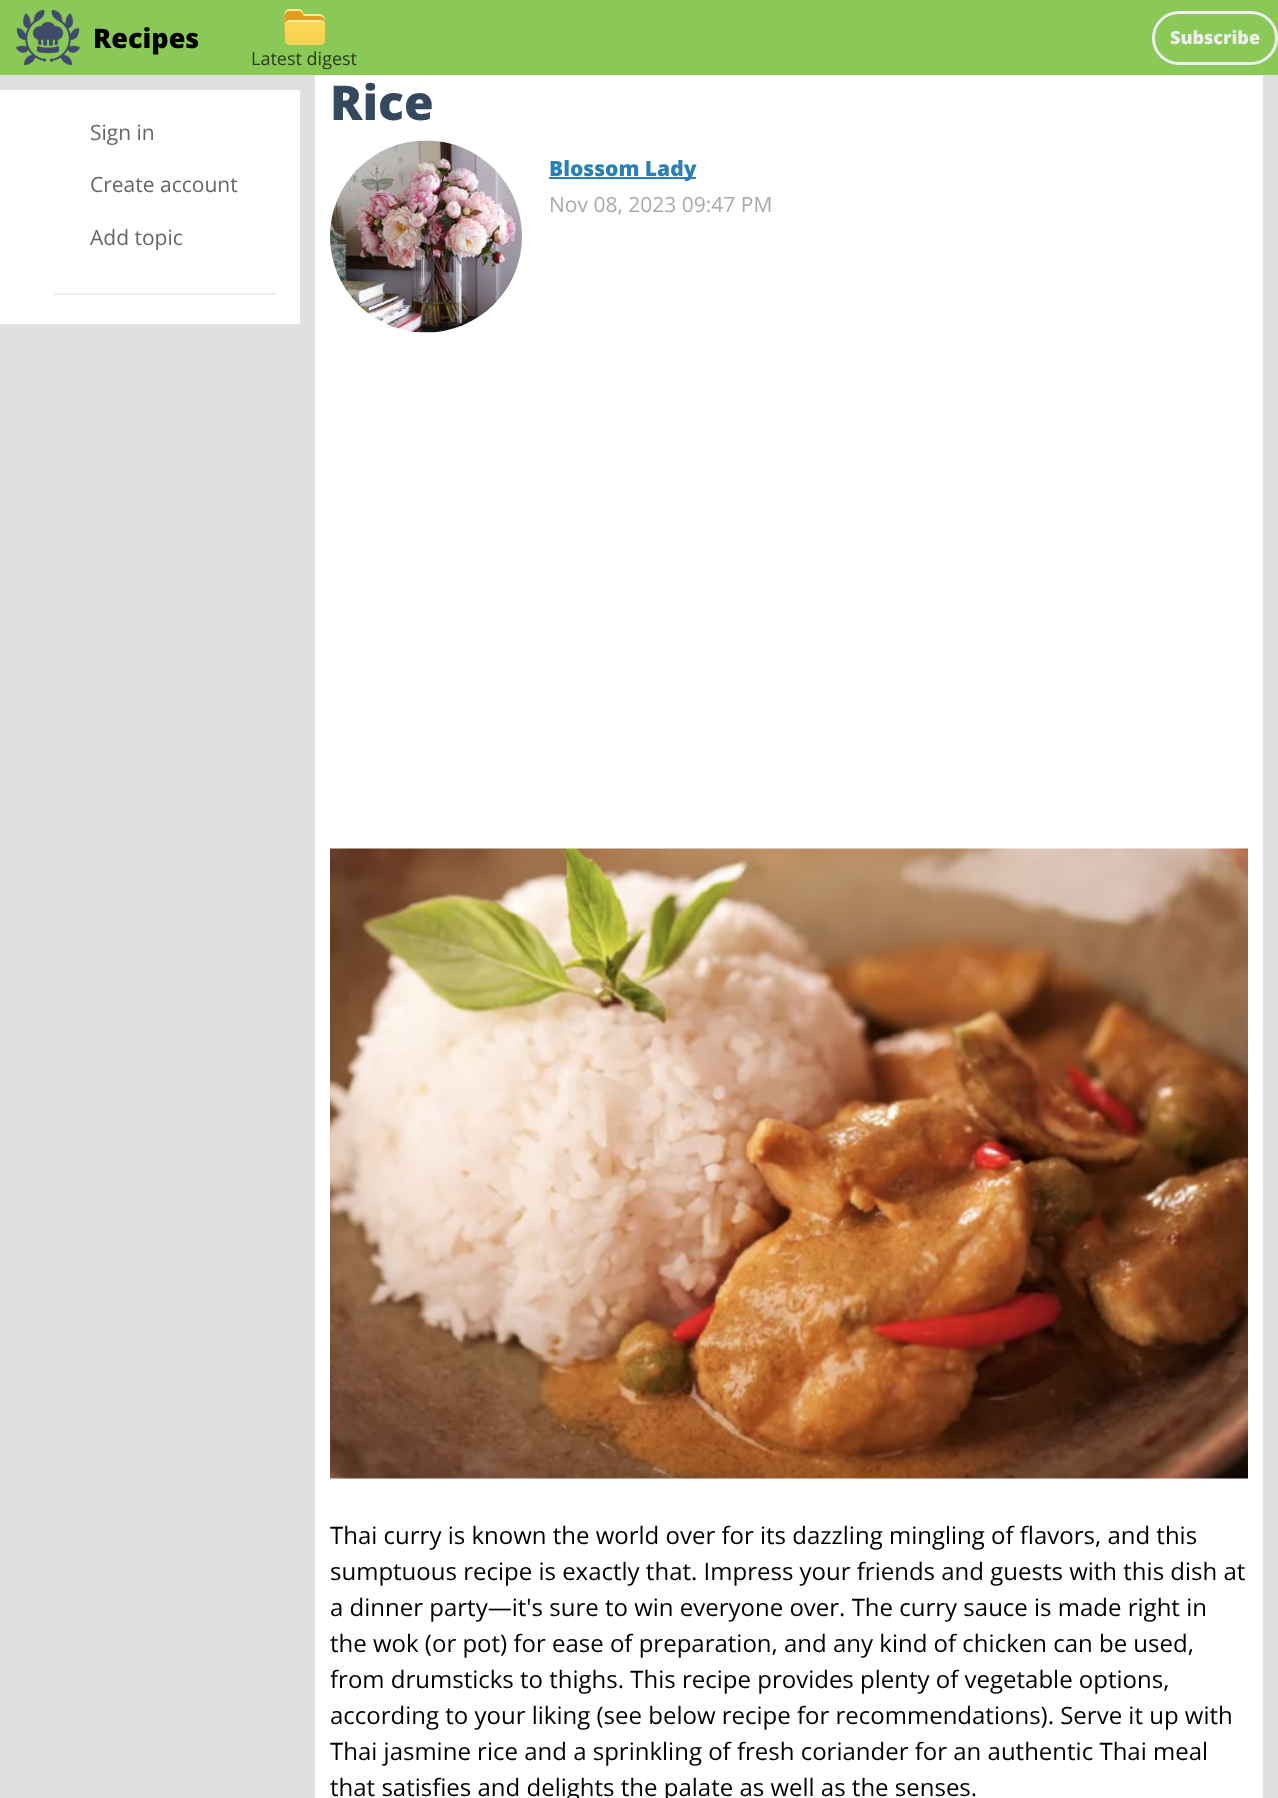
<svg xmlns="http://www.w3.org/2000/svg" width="1278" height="1798">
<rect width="100%" height="100%" fill="#e0e0e0"/>
<rect width="1278" height="75" fill="#8ac858"/>
<image x="16" y="9" width="64" height="57" href="media/1.png"/>
<text x="93" y="48" style="font-family:Open Sans;font-size:27px;font-weight:800;fill:#000">Recipes</text>
<rect x="1153.5" y="12.5" width="123" height="51" rx="25.5" fill="none" stroke="#eee" stroke-width="3"/>
<text x="1170" y="44" style="font-family:Open Sans;font-size:18px;font-weight:800;fill:#eee">Subscribe</text>
<image x="284" y="9" width="41" height="36" href="media/2.png"/>
<text x="251" y="65" style="font-family:Open Sans;font-size:18px;fill:#293c1a">Latest digest</text>
<rect y="90" width="300" height="234" fill="#fff"/>
<text x="90" y="140" style="font-family:Open Sans;font-size:21px;fill:#666">Sign in</text>
<text x="90" y="192" style="font-family:Open Sans;font-size:21px;fill:#666">Create account</text>
<text x="90" y="245" style="font-family:Open Sans;font-size:21px;fill:#666">Add topic</text>
<rect x="54" y="293" width="222" height="2" fill="#eee"/>
<rect x="315" y="75" width="948" height="1723" fill="#fff"/>
<text x="330" y="120" style="font-family:Open Sans;font-size:48px;font-weight:800;fill:#34495e">Rice</text>
<image x="330" y="140" width="192" height="193" href="media/3.png"/>
<rect x="549" y="177" width="147" height="2" fill="#2980b9"/>
<text x="549" y="176" style="font-family:Open Sans;font-size:21px;font-weight:800;fill:#2980b9">Blossom Lady</text>
<text x="549" y="212" style="font-family:Open Sans;font-size:21px;fill:#aaa">Nov 08, 2023 09:47 PM</text>
<image x="330" y="848" width="918" height="631" href="media/4.png"/>
<text x="330" y="1544" style="font-family:Open Sans;font-size:24px;fill:#000">Thai curry is known the world over for its dazzling mingling of flavors, and this</text>
<text x="330" y="1580" style="font-family:Open Sans;font-size:24px;fill:#000">sumptuous recipe is exactly that. Impress your friends and guests with this dish at</text>
<text x="330" y="1616" style="font-family:Open Sans;font-size:24px;fill:#000">a dinner party—it's sure to win everyone over. The curry sauce is made right in</text>
<text x="330" y="1652" style="font-family:Open Sans;font-size:24px;fill:#000">the wok (or pot) for ease of preparation, and any kind of chicken can be used,</text>
<text x="330" y="1688" style="font-family:Open Sans;font-size:24px;fill:#000">from drumsticks to thighs. This recipe provides plenty of vegetable options,</text>
<text x="330" y="1724" style="font-family:Open Sans;font-size:24px;fill:#000">according to your liking (see below recipe for recommendations). Serve it up with</text>
<text x="330" y="1760" style="font-family:Open Sans;font-size:24px;fill:#000">Thai jasmine rice and a sprinkling of fresh coriander for an authentic Thai meal</text>
<text x="330" y="1796" style="font-family:Open Sans;font-size:24px;fill:#000">that satisfies and delights the palate as well as the senses.</text>
</svg>
